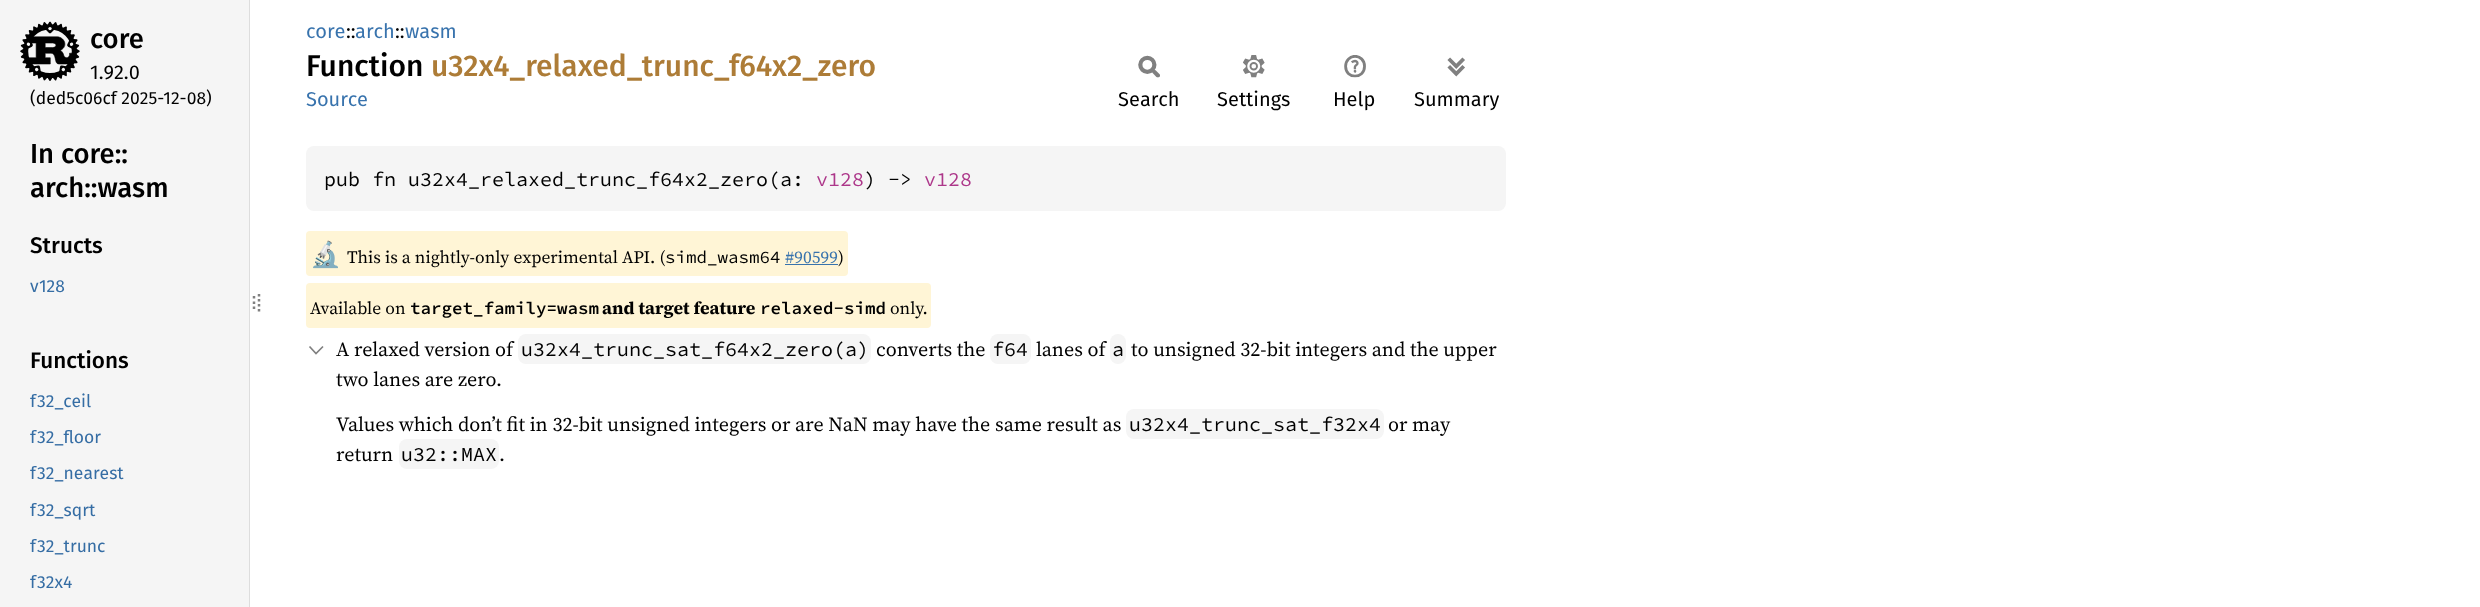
<svg xmlns="http://www.w3.org/2000/svg" width="2480" height="607">
<rect width="100%" height="100%" fill="#fff"/>
<rect width="249" height="607" fill="#f5f5f5"/>
<rect x="249" width="1" height="607" fill="#ddd"/>
<image x="20" y="21" width="60" height="60" href="media/1.png"/>
<text x="90" y="48" style="font-family:Fira Sans;font-size:27.5px;font-weight:500;fill:#000">core</text>
<text x="90" y="79" style="font-family:Fira Sans;font-size:20px;fill:#000">1.92.0</text>
<text x="30" y="104" style="font-family:Fira Sans;font-size:17.5px;fill:#000">(ded5c06cf 2025-12-08)</text>
<text x="30" y="163" style="font-family:Fira Sans;font-size:27.5px;font-weight:500;fill:#000">In core::</text>
<text x="30" y="197" style="font-family:Fira Sans;font-size:27.5px;font-weight:500;fill:#000">arch::wasm</text>
<text x="30" y="253" style="font-family:Fira Sans;font-size:22.5px;font-weight:500;fill:#000">Structs</text>
<text x="30" y="292" style="font-family:Fira Sans;font-size:17.5px;fill:#356da4">v128</text>
<text x="30" y="368" style="font-family:Fira Sans;font-size:22.5px;font-weight:500;fill:#000">Functions</text>
<text x="30" y="407" style="font-family:Fira Sans;font-size:17.5px;fill:#356da4">f32_ceil</text>
<text x="30" y="443" style="font-family:Fira Sans;font-size:17.5px;fill:#356da4">f32_floor</text>
<text x="30" y="479" style="font-family:Fira Sans;font-size:17.5px;fill:#356da4">f32_nearest</text>
<text x="30" y="516" style="font-family:Fira Sans;font-size:17.5px;fill:#356da4">f32_sqrt</text>
<text x="30" y="552" style="font-family:Fira Sans;font-size:17.5px;fill:#356da4">f32_trunc</text>
<text x="30" y="588" style="font-family:Fira Sans;font-size:17.5px;fill:#356da4">f32x4</text>
<path d="M254 296v2.5m0 3v2.5m0 2.5v2.5" fill="none" stroke="#808080" stroke-width="2.5"/>
<path d="M259 294v20" fill="none" stroke="#808080" stroke-width="2.5" stroke-dasharray="2.5 2.5"/>
<text x="306" y="38" style="font-family:Fira Sans;font-size:20px;fill:#3873ad">core</text>
<text x="346" y="38" style="font-family:Fira Sans;font-size:20px;fill:#000">::</text>
<text x="355" y="38" style="font-family:Fira Sans;font-size:20px;fill:#3873ad">arch</text>
<text x="395" y="38" style="font-family:Fira Sans;font-size:20px;fill:#000">::</text>
<text x="405" y="38" style="font-family:Fira Sans;font-size:20px;fill:#3873ad">wasm</text>
<text x="306" y="76" style="font-family:Fira Sans;font-size:30px;font-weight:500;fill:#000">Function</text>
<text x="431" y="76" style="font-family:Fira Sans;font-size:30px;font-weight:500;fill:#ad7c37">u32x4_relaxed_trunc_f64x2_zero</text>
<text x="306" y="106" style="font-family:Fira Sans;font-size:20px;fill:#3873ad">Source</text>
<image x="1138" y="55" width="22" height="23" href="media/2.png"/>
<text x="1118" y="106" style="font-family:Fira Sans;font-size:20px;fill:#000">Search</text>
<image x="1243" y="55" width="22" height="23" href="media/3.png"/>
<text x="1217" y="106" style="font-family:Fira Sans;font-size:20px;fill:#000">Settings</text>
<image x="1344" y="55" width="22" height="23" href="media/4.png"/>
<text x="1333" y="106" style="font-family:Fira Sans;font-size:20px;fill:#000">Help</text>
<image x="1447" y="57" width="18" height="20" href="media/5.png"/>
<text x="1414" y="106" style="font-family:Fira Sans;font-size:20px;fill:#000">Summary</text>
<rect x="306" y="146" width="1200" height="65" rx="8" fill="#f5f5f5"/>
<text x="324" y="186" style="font-family:Source Code Pro;font-size:20px;fill:#000">pub fn u32x4_relaxed_trunc_f64x2_zero(a:</text>
<text x="816" y="186" style="font-family:Source Code Pro;font-size:20px;fill:#ad378a">v128</text>
<text x="864" y="186" style="font-family:Source Code Pro;font-size:20px;fill:#000">) -&gt;</text>
<text x="924" y="186" style="font-family:Source Code Pro;font-size:20px;fill:#ad378a">v128</text>
<rect x="306" y="231" width="542" height="45" rx="4" fill="#fff5d6"/>
<text x="310" y="263" style="font-family:Noto Color Emoji;font-size:25px;fill:#000">🔬</text>
<text x="347" y="263" style="font-family:'Source Serif 4';font-size:17.5px;fill:#000">This is a nightly-only experimental API. (</text>
<text x="665" y="263" style="font-family:Source Code Pro;font-size:17.5px;fill:#000">simd_wasm64</text>
<text x="785" y="263" style="font-family:'Source Serif 4';font-size:17.5px;fill:#3873ad">#90599</text>
<text x="838" y="263" style="font-family:'Source Serif 4';font-size:17.5px;fill:#000">)</text>
<rect x="785" y="264" width="53" height="1" fill="#3873ad"/>
<rect x="306" y="283" width="625" height="45" rx="4" fill="#fff5d6"/>
<text x="310" y="314" style="font-family:'Source Serif 4';font-size:17.5px;fill:#000">Available on</text>
<text x="410" y="314" style="font-family:Source Code Pro;font-size:17.5px;font-weight:600;fill:#000">target_family=wasm</text>
<text x="602" y="314" style="font-family:'Source Serif 4';font-size:17.5px;font-weight:bold;fill:#000">and target feature</text>
<text x="760" y="314" style="font-family:Source Code Pro;font-size:17.5px;font-weight:600;fill:#000">relaxed-simd</text>
<text x="890" y="314" style="font-family:'Source Serif 4';font-size:17.5px;fill:#000">only.</text>
<path d="M309.5 346.5l6.5 7l7-7" fill="none" stroke="#808080" stroke-width="1.7"/>
<text x="336" y="356" style="font-family:'Source Serif 4';font-size:20px;fill:#000">A relaxed version of</text>
<rect x="518" y="334" width="353" height="30" rx="8" fill="#f5f5f5"/>
<text x="521" y="356" style="font-family:Source Code Pro;font-size:20px;fill:#000">u32x4_trunc_sat_f64x2_zero(a)</text>
<text x="876" y="356" style="font-family:'Source Serif 4';font-size:20px;fill:#000">converts the</text>
<rect x="990" y="334" width="41" height="30" rx="8" fill="#f5f5f5"/>
<text x="992" y="356" style="font-family:Source Code Pro;font-size:20px;fill:#000">f64</text>
<text x="1036" y="356" style="font-family:'Source Serif 4';font-size:20px;fill:#000">lanes of</text>
<rect x="1110" y="334" width="16" height="30" rx="8" fill="#f5f5f5"/>
<text x="1112" y="356" style="font-family:Source Code Pro;font-size:20px;fill:#000">a</text>
<text x="1131" y="356" style="font-family:'Source Serif 4';font-size:20px;fill:#000">to unsigned 32-bit integers and the upper</text>
<text x="336" y="386" style="font-family:'Source Serif 4';font-size:20px;fill:#000">two lanes are zero.</text>
<text x="336" y="431" style="font-family:'Source Serif 4';font-size:20px;fill:#000">Values which don’t fit in 32-bit unsigned integers or are NaN may have the same result as</text>
<rect x="1126" y="409" width="258" height="30" rx="8" fill="#f5f5f5"/>
<text x="1129" y="431" style="font-family:Source Code Pro;font-size:20px;fill:#000">u32x4_trunc_sat_f32x4</text>
<text x="1388" y="431" style="font-family:'Source Serif 4';font-size:20px;fill:#000">or may</text>
<text x="336" y="461" style="font-family:'Source Serif 4';font-size:20px;fill:#000">return</text>
<rect x="399" y="439" width="100" height="30" rx="8" fill="#f5f5f5"/>
<text x="401" y="461" style="font-family:Source Code Pro;font-size:20px;fill:#000">u32::MAX</text>
<text x="499" y="461" style="font-family:'Source Serif 4';font-size:20px;fill:#000">.</text>
</svg>
